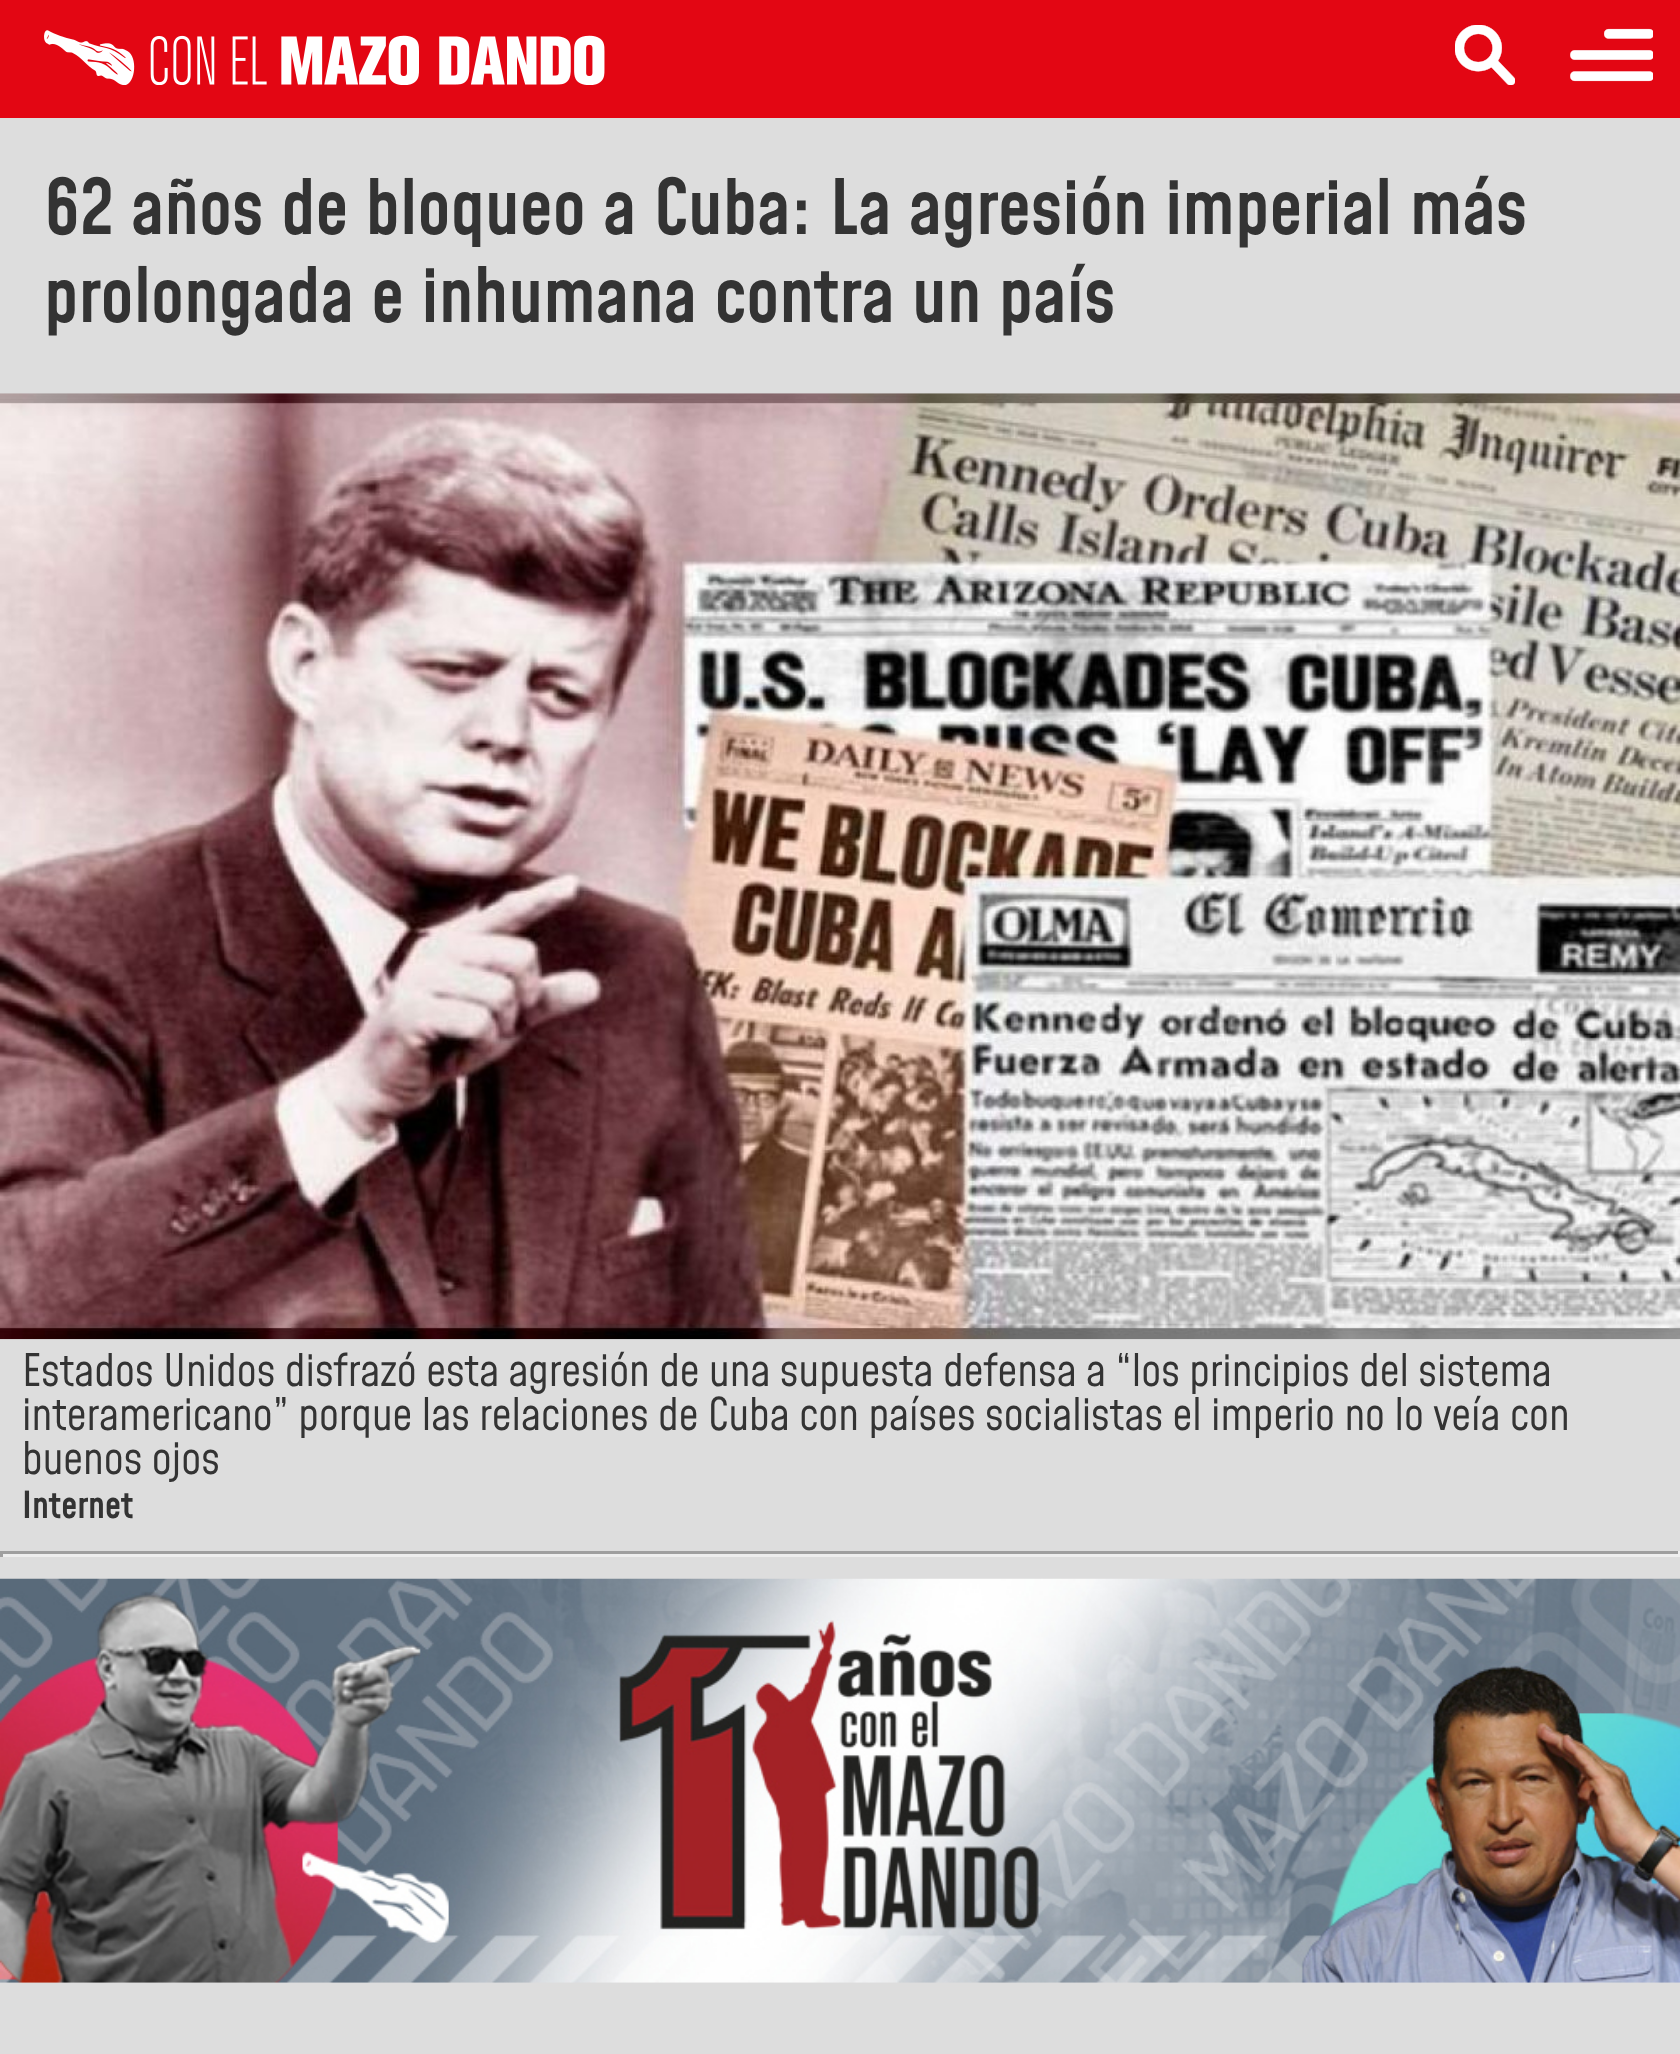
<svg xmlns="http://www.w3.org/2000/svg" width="1680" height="2054">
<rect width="100%" height="100%" fill="#ddd"/>
<rect width="1680" height="118" fill="#e30613"/>
<image x="44" y="30" width="561" height="55" href="media/1.png"/>
<image x="1455" y="25" width="60" height="60" href="media/2.png"/>
<image x="1570" y="28" width="83" height="54" href="media/3.png"/>
<text x="44" y="234" style="font-family:Mohave;font-size:74.75px;font-weight:600;fill:#333">62 años de bloqueo a Cuba: La agresión imperial más</text>
<text x="44" y="322" style="font-family:Mohave;font-size:74.75px;font-weight:600;fill:#333">prolongada e inhumana contra un país</text>
<image x="0" y="393" width="1680" height="947" href="media/4.png"/>
<text x="22" y="1386" style="font-family:Mohave;font-size:44px;font-weight:300;fill:#333">Estados Unidos disfrazó esta agresión de una supuesta defensa a “los principios del sistema</text>
<text x="22" y="1430" style="font-family:Mohave;font-size:44px;font-weight:300;fill:#333">interamericano” porque las relaciones de Cuba con países socialistas el imperio no lo veía con</text>
<text x="22" y="1474" style="font-family:Mohave;font-size:44px;font-weight:300;fill:#333">buenos ojos</text>
<text x="22" y="1518" style="font-family:Mohave;font-size:36.5px;font-weight:600;fill:#333">Internet</text>
<rect y="1551" width="1680" height="3" fill="#9f9f9f"/>
<rect x="1678" y="1551" width="2" height="6" fill="#eee"/>
<rect y="1554" width="1680" height="3" fill="#eee"/>
<rect y="1551" width="3" height="6" fill="#9f9f9f"/>
<image x="0" y="1578" width="1680" height="405" href="media/5.png"/>
</svg>
